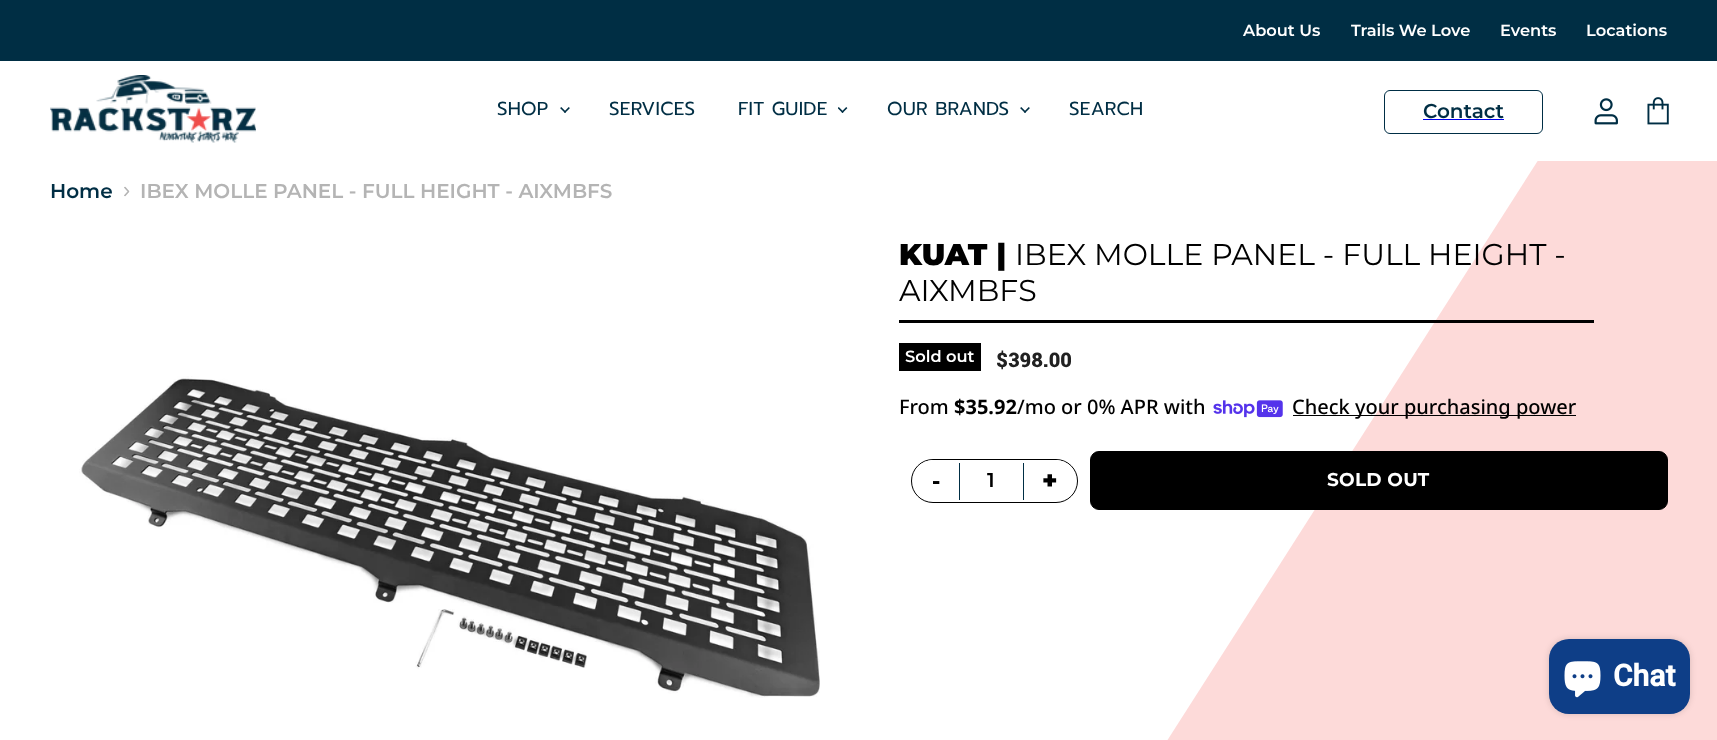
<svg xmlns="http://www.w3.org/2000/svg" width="1717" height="740">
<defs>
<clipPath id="clip1"><path d="M123.5 196.5v-10h6v10z"/></clipPath>
<clipPath id="clip2"><rect x="1071" y="161" width="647" height="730"/></clipPath>
</defs>
<rect width="100%" height="100%" fill="#fff"/>
<rect width="1717" height="61" fill="#002e44"/>
<text x="1243" y="36" style="font-family:Montserrat;font-size:16.25px;font-weight:600;fill:#fff">About Us</text>
<text x="1351" y="36" style="font-family:Montserrat;font-size:16.25px;font-weight:600;fill:#fff">Trails We Love</text>
<text x="1500" y="36" style="font-family:Montserrat;font-size:16.25px;font-weight:600;fill:#fff">Events</text>
<text x="1586" y="36" style="font-family:Montserrat;font-size:16.25px;font-weight:600;fill:#fff">Locations</text>
<image x="50" y="75" width="206" height="68" href="media/1.png"/>
<text x="497" y="115" style="font-family:Prompt;font-size:18.75px;letter-spacing:0.25px;fill:#002e44">SHOP</text>
<image x="560" y="107" width="10" height="6" href="media/2.png"/>
<text x="609" y="115" style="font-family:Prompt;font-size:18.75px;letter-spacing:0.25px;fill:#002e44">SERVICES</text>
<text x="738" y="115" style="font-family:Prompt;font-size:18.75px;letter-spacing:0.25px;fill:#002e44">FIT GUIDE</text>
<image x="838" y="107" width="10" height="6" href="media/3.png"/>
<text x="887" y="115" style="font-family:Prompt;font-size:18.75px;letter-spacing:0.25px;fill:#002e44">OUR BRANDS</text>
<image x="1020" y="107" width="10" height="6" href="media/2.png"/>
<text x="1069" y="115" style="font-family:Prompt;font-size:18.75px;letter-spacing:0.25px;fill:#002e44">SEARCH</text>
<rect x="1384.5" y="90.5" width="158" height="43" rx="5.5" fill="none" stroke="#002e45"/>
<text x="1423" y="118" style="font-family:Montserrat;font-size:20px;font-weight:600;fill:#002e44">Contact</text>
<rect x="1423" y="119" width="81" height="1" fill="#00e"/>
<image x="1594" y="98" width="24" height="27" href="media/4.png"/>
<image x="1647" y="97" width="22" height="28" href="media/5.png"/>
<text x="50" y="198" style="font-family:Montserrat;font-size:20px;font-weight:600;fill:#002e44">Home</text>
<g clip-path="url(#clip1)">
<path d="M124.5 196l4-4.5l-4-4.5" fill="none" stroke="#b4b4b4" stroke-width="1.6"/>
</g>
<text x="140" y="198" style="font-family:Montserrat;font-size:20px;font-weight:600;fill:#b4b4b4">IBEX MOLLE PANEL - FULL HEIGHT - AIXMBFS</text>
<g clip-path="url(#clip2)">
<path d="M1071 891l613-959l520 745z" fill="#fddad9"/>
</g>
<image x="79" y="376" width="741" height="322" href="media/6.png"/>
<text x="899" y="265" style="font-family:Montserrat;font-size:30px;font-weight:900;fill:#000">KUAT |</text>
<text x="1015" y="265" style="font-family:Montserrat;font-size:30px;fill:#000">IBEX MOLLE PANEL - FULL HEIGHT -</text>
<text x="899" y="301" style="font-family:Montserrat;font-size:30px;fill:#000">AIXMBFS</text>
<rect x="899" y="320" width="695" height="3" fill="#000"/>
<rect x="899" y="343" width="82" height="28" fill="#000"/>
<text x="905" y="362" style="font-family:Montserrat;font-size:16.25px;font-weight:600;fill:#fff">Sold out</text>
<text x="996" y="367" style="font-family:Roboto;font-size:20px;font-weight:900;fill:#212121">$398.00</text>
<text x="899" y="414" style="font-family:Noto Sans;font-size:20px;font-weight:500;fill:#000">From</text>
<text x="954" y="414" style="font-family:Noto Sans;font-size:20px;font-weight:bold;fill:#000">$35.92</text>
<text x="1017" y="414" style="font-family:Noto Sans;font-size:20px;font-weight:500;fill:#000">/mo or 0% APR with</text>
<image x="1213" y="400" width="70" height="18" href="media/7.png"/>
<rect x="1293" y="415" width="283" height="1" fill="#000"/>
<text x="1292" y="414" style="font-family:Noto Sans;font-size:20px;font-weight:500;fill:#000">Check your purchasing power</text>
<rect x="911.5" y="459.5" width="166" height="43" rx="21.5" fill="none" stroke="#000"/>
<path d="M933.5 460h25.5v41h-25.5c-11.5 0-20.5-9-20.5-20.5c0-11.5 9-20.5 20.5-20.5z" fill="#fff"/>
<text x="932" y="489" style="font-family:Liberation Sans;font-size:25px;font-weight:bold;fill:#000">-</text>
<rect x="1023" y="463" width="1" height="37" fill="#002e44"/>
<rect x="959" y="463" width="1" height="37" fill="#002e44"/>
<text x="987" y="487" style="font-family:Montserrat;font-size:20px;font-weight:600;fill:#000">1</text>
<path d="M1024 460h31.5c11.5 0 20.5 9 20.5 20.5c0 11.5-9 20.5-20.5 20.5h-31.5z" fill="#fff"/>
<text x="1042" y="489" style="font-family:Montserrat;font-size:25px;font-weight:900;fill:#000">+</text>
<rect x="1090.5" y="451.5" width="577" height="58" rx="8.5" fill="#000" stroke="#000"/>
<text x="1327" y="486" style="font-family:Montserrat;font-size:18.5px;font-weight:bold;letter-spacing:0.25px;fill:#fff">SOLD OUT</text>
<rect x="1549" y="639" width="141" height="75" rx="20" fill="#00000026" filter="blur(3px)"/>
<rect x="1549" y="639" width="141" height="75" rx="20" fill="#0e3e87"/>
<image x="1564" y="661" width="37" height="37" href="media/8.png"/>
<text x="1613" y="686" style="font-family:Roboto;font-size:30px;font-weight:bold;fill:#fff">Chat</text>
</svg>
